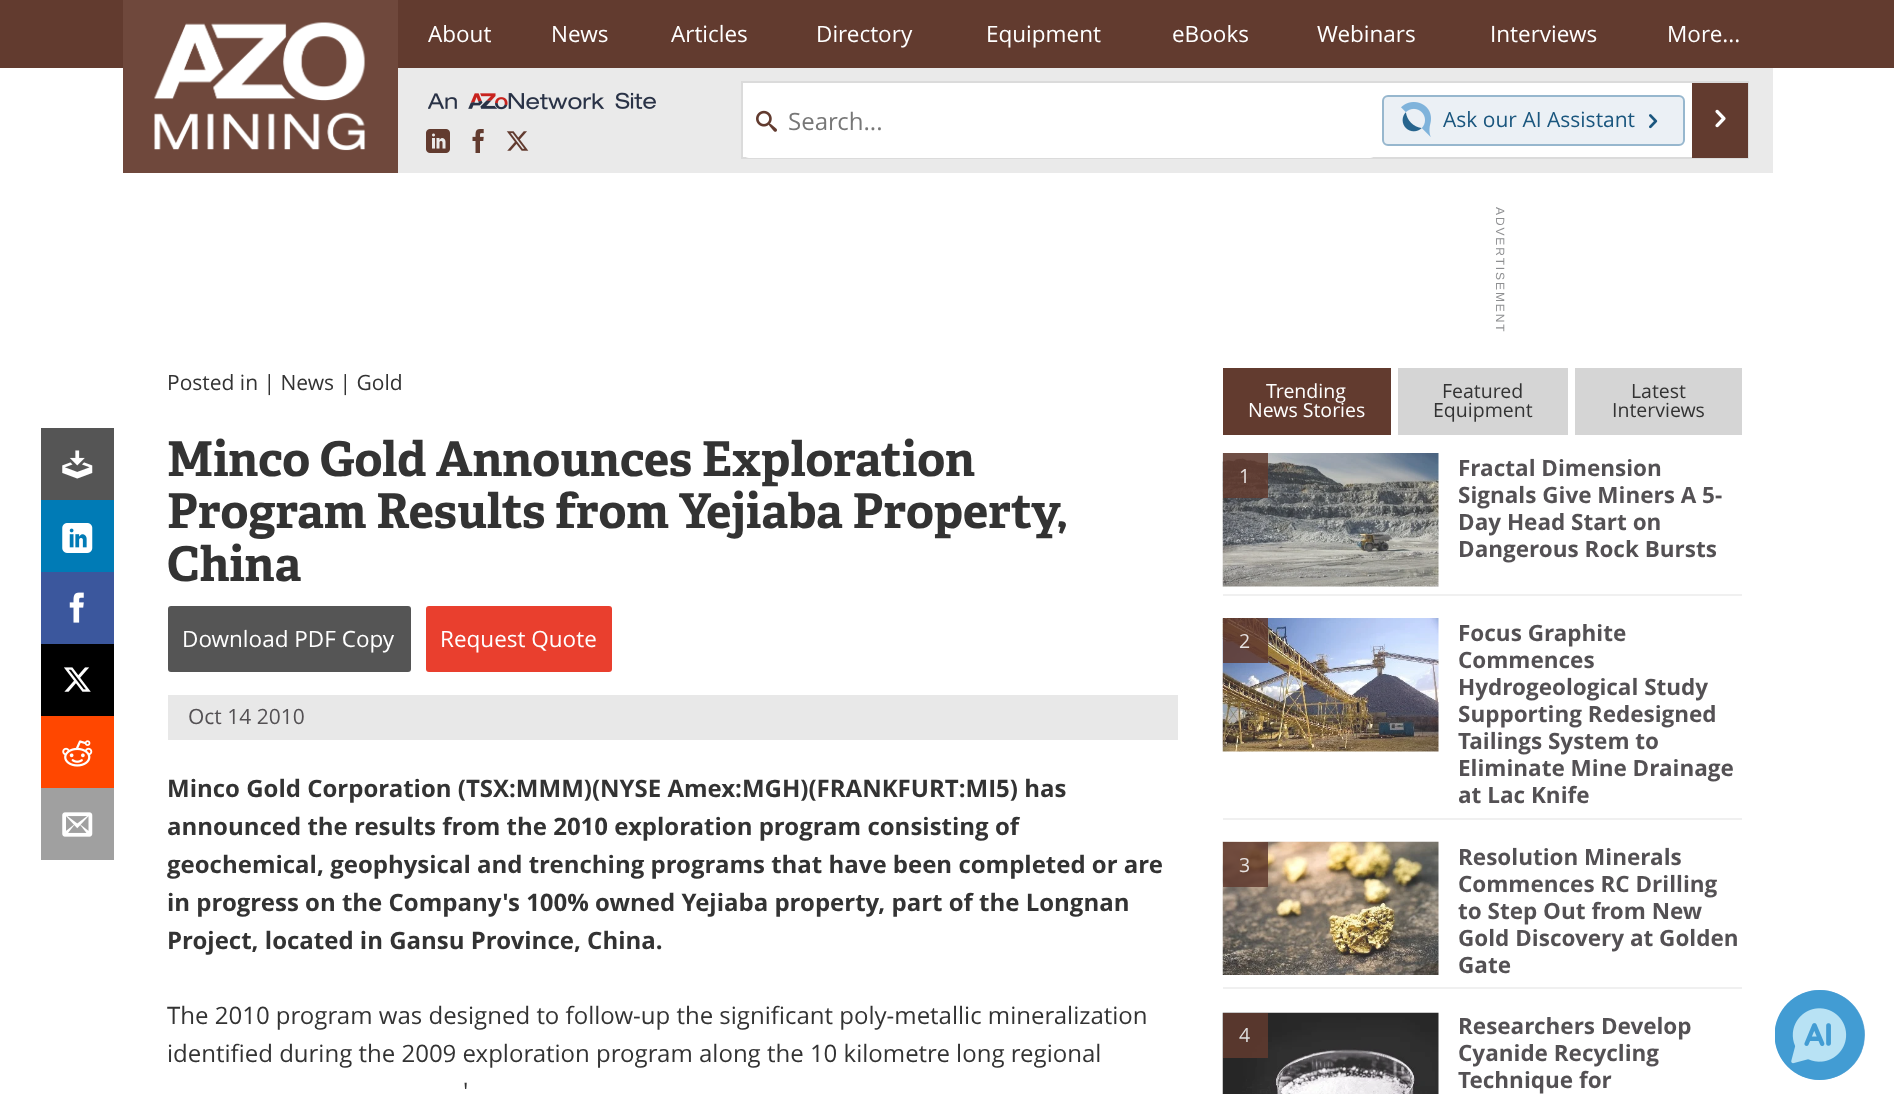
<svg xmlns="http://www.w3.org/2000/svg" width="1894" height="1094">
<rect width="100%" height="100%" fill="#fff"/>
<rect width="1894" height="68" fill="#623b2f"/>
<rect x="398" y="68" width="1375" height="105" fill="#eaeaea"/>
<rect x="123" width="275" height="173" fill="#6f483c"/>
<image x="154" y="22" width="212" height="129" href="media/1.png"/>
<text x="428" y="42" style="font-family:Open Sans;font-size:22.5px;fill:#fff">About</text>
<text x="551" y="42" style="font-family:Open Sans;font-size:22.5px;fill:#fff">News</text>
<text x="671" y="42" style="font-family:Open Sans;font-size:22.5px;fill:#fff">Articles</text>
<text x="816" y="42" style="font-family:Open Sans;font-size:22.5px;fill:#fff">Directory</text>
<text x="986" y="42" style="font-family:Open Sans;font-size:22.5px;fill:#fff">Equipment</text>
<text x="1172" y="42" style="font-family:Open Sans;font-size:22.5px;fill:#fff">eBooks</text>
<text x="1317" y="42" style="font-family:Open Sans;font-size:22.5px;fill:#fff">Webinars</text>
<text x="1490" y="42" style="font-family:Open Sans;font-size:22.5px;fill:#fff">Interviews</text>
<text x="1667" y="42" style="font-family:Open Sans;font-size:22.5px;fill:#fff">More...</text>
<image x="428" y="92" width="228" height="18" href="media/2.png"/>
<image x="426" y="129" width="24" height="24" href="media/3.png"/>
<image x="472" y="129" width="12" height="24" href="media/4.png"/>
<image x="506" y="131" width="23" height="20" href="media/5.png"/>
<rect x="743" y="83" width="949" height="74" fill="#fff"/>
<rect x="742" y="82" width="1006" height="76" fill="none" stroke="#dbdbdb" stroke-width="2"/>
<rect x="743" y="84" width="633" height="74" rx="6" fill="#fff"/>
<image x="756" y="110" width="21" height="22" href="media/6.png"/>
<text x="788" y="130" style="font-family:Open Sans;font-size:24px;fill:#777">Search...</text>
<rect x="1383" y="96" width="301" height="49" rx="5" fill="#ebf0f5" stroke="#97b7ce" stroke-width="2"/>
<image x="1401" y="102" width="30" height="35" href="media/7.png"/>
<text x="1443" y="127" style="font-family:Open Sans;font-size:21px;fill:#1a567e">Ask our AI Assistant</text>
<image x="1649" y="114" width="9" height="15" href="media/8.png"/>
<rect x="1692" y="83" width="56" height="75" fill="#623b2f"/>
<image x="1715" y="109" width="11" height="19" href="media/9.png"/>
<text x="1496" y="207" transform="rotate(90 1496 207)" style="font-family:Liberation Sans;font-size:12px;letter-spacing:1.9px;fill:#8e8f91">ADVERTISEMENT</text>
<text x="167" y="390" style="font-family:Open Sans;font-size:21px;fill:#333">Posted in | News | Gold</text>
<rect x="41" y="428" width="73" height="72" fill="#555"/>
<image x="62" y="450" width="31" height="29" href="media/10.png"/>
<rect x="41" y="500" width="73" height="72" fill="#007bb6"/>
<image x="62" y="523" width="31" height="30" href="media/11.png"/>
<rect x="41" y="572" width="73" height="72" fill="#3b579d"/>
<image x="69" y="592" width="15" height="31" href="media/12.png"/>
<rect x="41" y="644" width="73" height="72" fill="#000"/>
<image x="64" y="667" width="27" height="25" href="media/13.png"/>
<rect x="41" y="716" width="73" height="72" fill="#ff4700"/>
<image x="62" y="740" width="31" height="27" href="media/14.png"/>
<rect x="41" y="788" width="73" height="72" fill="#a0a0a0"/>
<image x="62" y="812" width="31" height="25" href="media/15.png"/>
<text x="167" y="476" style="font-family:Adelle;font-size:48px;font-weight:bold;fill:#333">Minco Gold Announces Exploration</text>
<text x="167" y="528" style="font-family:Adelle;font-size:48px;font-weight:bold;fill:#333">Program Results from Yejiaba Property,</text>
<text x="167" y="581" style="font-family:Adelle;font-size:48px;font-weight:bold;fill:#333">China</text>
<rect x="168" y="606" width="243" height="66" rx="3" fill="#555"/>
<text x="182" y="647" style="font-family:Open Sans;font-size:22.5px;fill:#fff">Download PDF Copy</text>
<rect x="426" y="606" width="186" height="66" rx="3" fill="#e93f2e"/>
<text x="440" y="647" style="font-family:Open Sans;font-size:22.5px;fill:#fff">Request Quote</text>
<rect x="168" y="695" width="1010" height="45" fill="#e8e8e8"/>
<text x="188" y="724" style="font-family:Open Sans;font-size:21px;fill:#545154">Oct 14 2010</text>
<text x="167" y="797" style="font-family:Open Sans;font-size:24px;font-weight:bold;fill:#333">Minco Gold Corporation (TSX:MMM)(NYSE Amex:MGH)(FRANKFURT:MI5) has</text>
<text x="167" y="835" style="font-family:Open Sans;font-size:24px;font-weight:bold;fill:#333">announced the results from the 2010 exploration program consisting of</text>
<text x="167" y="873" style="font-family:Open Sans;font-size:24px;font-weight:bold;fill:#333">geochemical, geophysical and trenching programs that have been completed or are</text>
<text x="167" y="911" style="font-family:Open Sans;font-size:24px;font-weight:bold;fill:#333">in progress on the Company's 100% owned Yejiaba property, part of the Longnan</text>
<text x="167" y="949" style="font-family:Open Sans;font-size:24px;font-weight:bold;fill:#333">Project, located in Gansu Province, China.</text>
<text x="167" y="1024" style="font-family:Open Sans;font-size:24px;fill:#333">The 2010 program was designed to follow-up the significant poly-metallic mineralization</text>
<text x="167" y="1062" style="font-family:Open Sans;font-size:24px;fill:#333">identified during the 2009 exploration program along the 10 kilometre long regional</text>
<text x="463" y="1100" style="font-family:Open Sans;font-size:24px;fill:#333">'</text>
<rect x="1223" y="368" width="168" height="67" fill="#623b2f"/>
<text x="1266" y="398" style="font-family:Open Sans;font-size:19.5px;fill:#fff">Trending</text>
<text x="1248" y="417" style="font-family:Open Sans;font-size:19.5px;fill:#fff">News Stories</text>
<rect x="1398" y="368" width="170" height="67" fill="#d5d5d5"/>
<text x="1442" y="398" style="font-family:Open Sans;font-size:19.5px;fill:#333">Featured</text>
<text x="1433" y="417" style="font-family:Open Sans;font-size:19.5px;fill:#333">Equipment</text>
<rect x="1575" y="368" width="167" height="67" fill="#d5d5d5"/>
<text x="1631" y="398" style="font-family:Open Sans;font-size:19.5px;fill:#333">Latest</text>
<text x="1612" y="417" style="font-family:Open Sans;font-size:19.5px;fill:#333">Interviews</text>
<rect x="1223" y="594" width="519" height="2" fill="#f0f0f0"/>
<image x="1222" y="453" width="217" height="134" href="media/16.png"/>
<rect x="1223" y="453" width="45" height="45" fill="#623b2fd9"/>
<text x="1239" y="483" style="font-family:Open Sans;font-size:19.5px;fill:#e7e2e1">1</text>
<text x="1458" y="476" style="font-family:Open Sans;font-size:22.5px;font-weight:bold;fill:#545154">Fractal Dimension</text>
<text x="1458" y="503" style="font-family:Open Sans;font-size:22.5px;font-weight:bold;fill:#545154">Signals Give Miners A 5-</text>
<text x="1458" y="530" style="font-family:Open Sans;font-size:22.5px;font-weight:bold;fill:#545154">Day Head Start on</text>
<text x="1458" y="557" style="font-family:Open Sans;font-size:22.5px;font-weight:bold;fill:#545154">Dangerous Rock Bursts</text>
<rect x="1223" y="818" width="519" height="2" fill="#f0f0f0"/>
<image x="1222" y="618" width="217" height="134" href="media/17.png"/>
<rect x="1223" y="618" width="45" height="45" fill="#623b2fd9"/>
<text x="1239" y="648" style="font-family:Open Sans;font-size:19.5px;fill:#e7e2e1">2</text>
<text x="1458" y="641" style="font-family:Open Sans;font-size:22.5px;font-weight:bold;fill:#545154">Focus Graphite</text>
<text x="1458" y="668" style="font-family:Open Sans;font-size:22.5px;font-weight:bold;fill:#545154">Commences</text>
<text x="1458" y="695" style="font-family:Open Sans;font-size:22.5px;font-weight:bold;fill:#545154">Hydrogeological Study</text>
<text x="1458" y="722" style="font-family:Open Sans;font-size:22.5px;font-weight:bold;fill:#545154">Supporting Redesigned</text>
<text x="1458" y="749" style="font-family:Open Sans;font-size:22.5px;font-weight:bold;fill:#545154">Tailings System to</text>
<text x="1458" y="776" style="font-family:Open Sans;font-size:22.5px;font-weight:bold;fill:#545154">Eliminate Mine Drainage</text>
<text x="1458" y="803" style="font-family:Open Sans;font-size:22.5px;font-weight:bold;fill:#545154">at Lac Knife</text>
<rect x="1223" y="987" width="519" height="2" fill="#f0f0f0"/>
<image x="1222" y="841" width="217" height="134" href="media/18.png"/>
<rect x="1223" y="842" width="45" height="45" fill="#623b2fd9"/>
<text x="1239" y="872" style="font-family:Open Sans;font-size:19.5px;fill:#e7e2e1">3</text>
<text x="1458" y="865" style="font-family:Open Sans;font-size:22.5px;font-weight:bold;fill:#545154">Resolution Minerals</text>
<text x="1458" y="892" style="font-family:Open Sans;font-size:22.5px;font-weight:bold;fill:#545154">Commences RC Drilling</text>
<text x="1458" y="919" style="font-family:Open Sans;font-size:22.5px;font-weight:bold;fill:#545154">to Step Out from New</text>
<text x="1458" y="946" style="font-family:Open Sans;font-size:22.5px;font-weight:bold;fill:#545154">Gold Discovery at Golden</text>
<text x="1458" y="973" style="font-family:Open Sans;font-size:22.5px;font-weight:bold;fill:#545154">Gate</text>
<image x="1222" y="1012" width="217" height="82" href="media/19.png"/>
<rect x="1223" y="1013" width="45" height="45" fill="#623b2fd9"/>
<text x="1239" y="1042" style="font-family:Open Sans;font-size:19.5px;fill:#dedede">4</text>
<text x="1458" y="1034" style="font-family:Open Sans;font-size:22.5px;font-weight:bold;fill:#545154">Researchers Develop</text>
<text x="1458" y="1061" style="font-family:Open Sans;font-size:22.5px;font-weight:bold;fill:#545154">Cyanide Recycling</text>
<text x="1458" y="1088" style="font-family:Open Sans;font-size:22.5px;font-weight:bold;fill:#545154">Technique for</text>
<circle cx="1820" cy="1035" r="45" fill="#7fb3db"/>
<image x="1775" y="990" width="90" height="90" href="media/20.png"/>
</svg>
